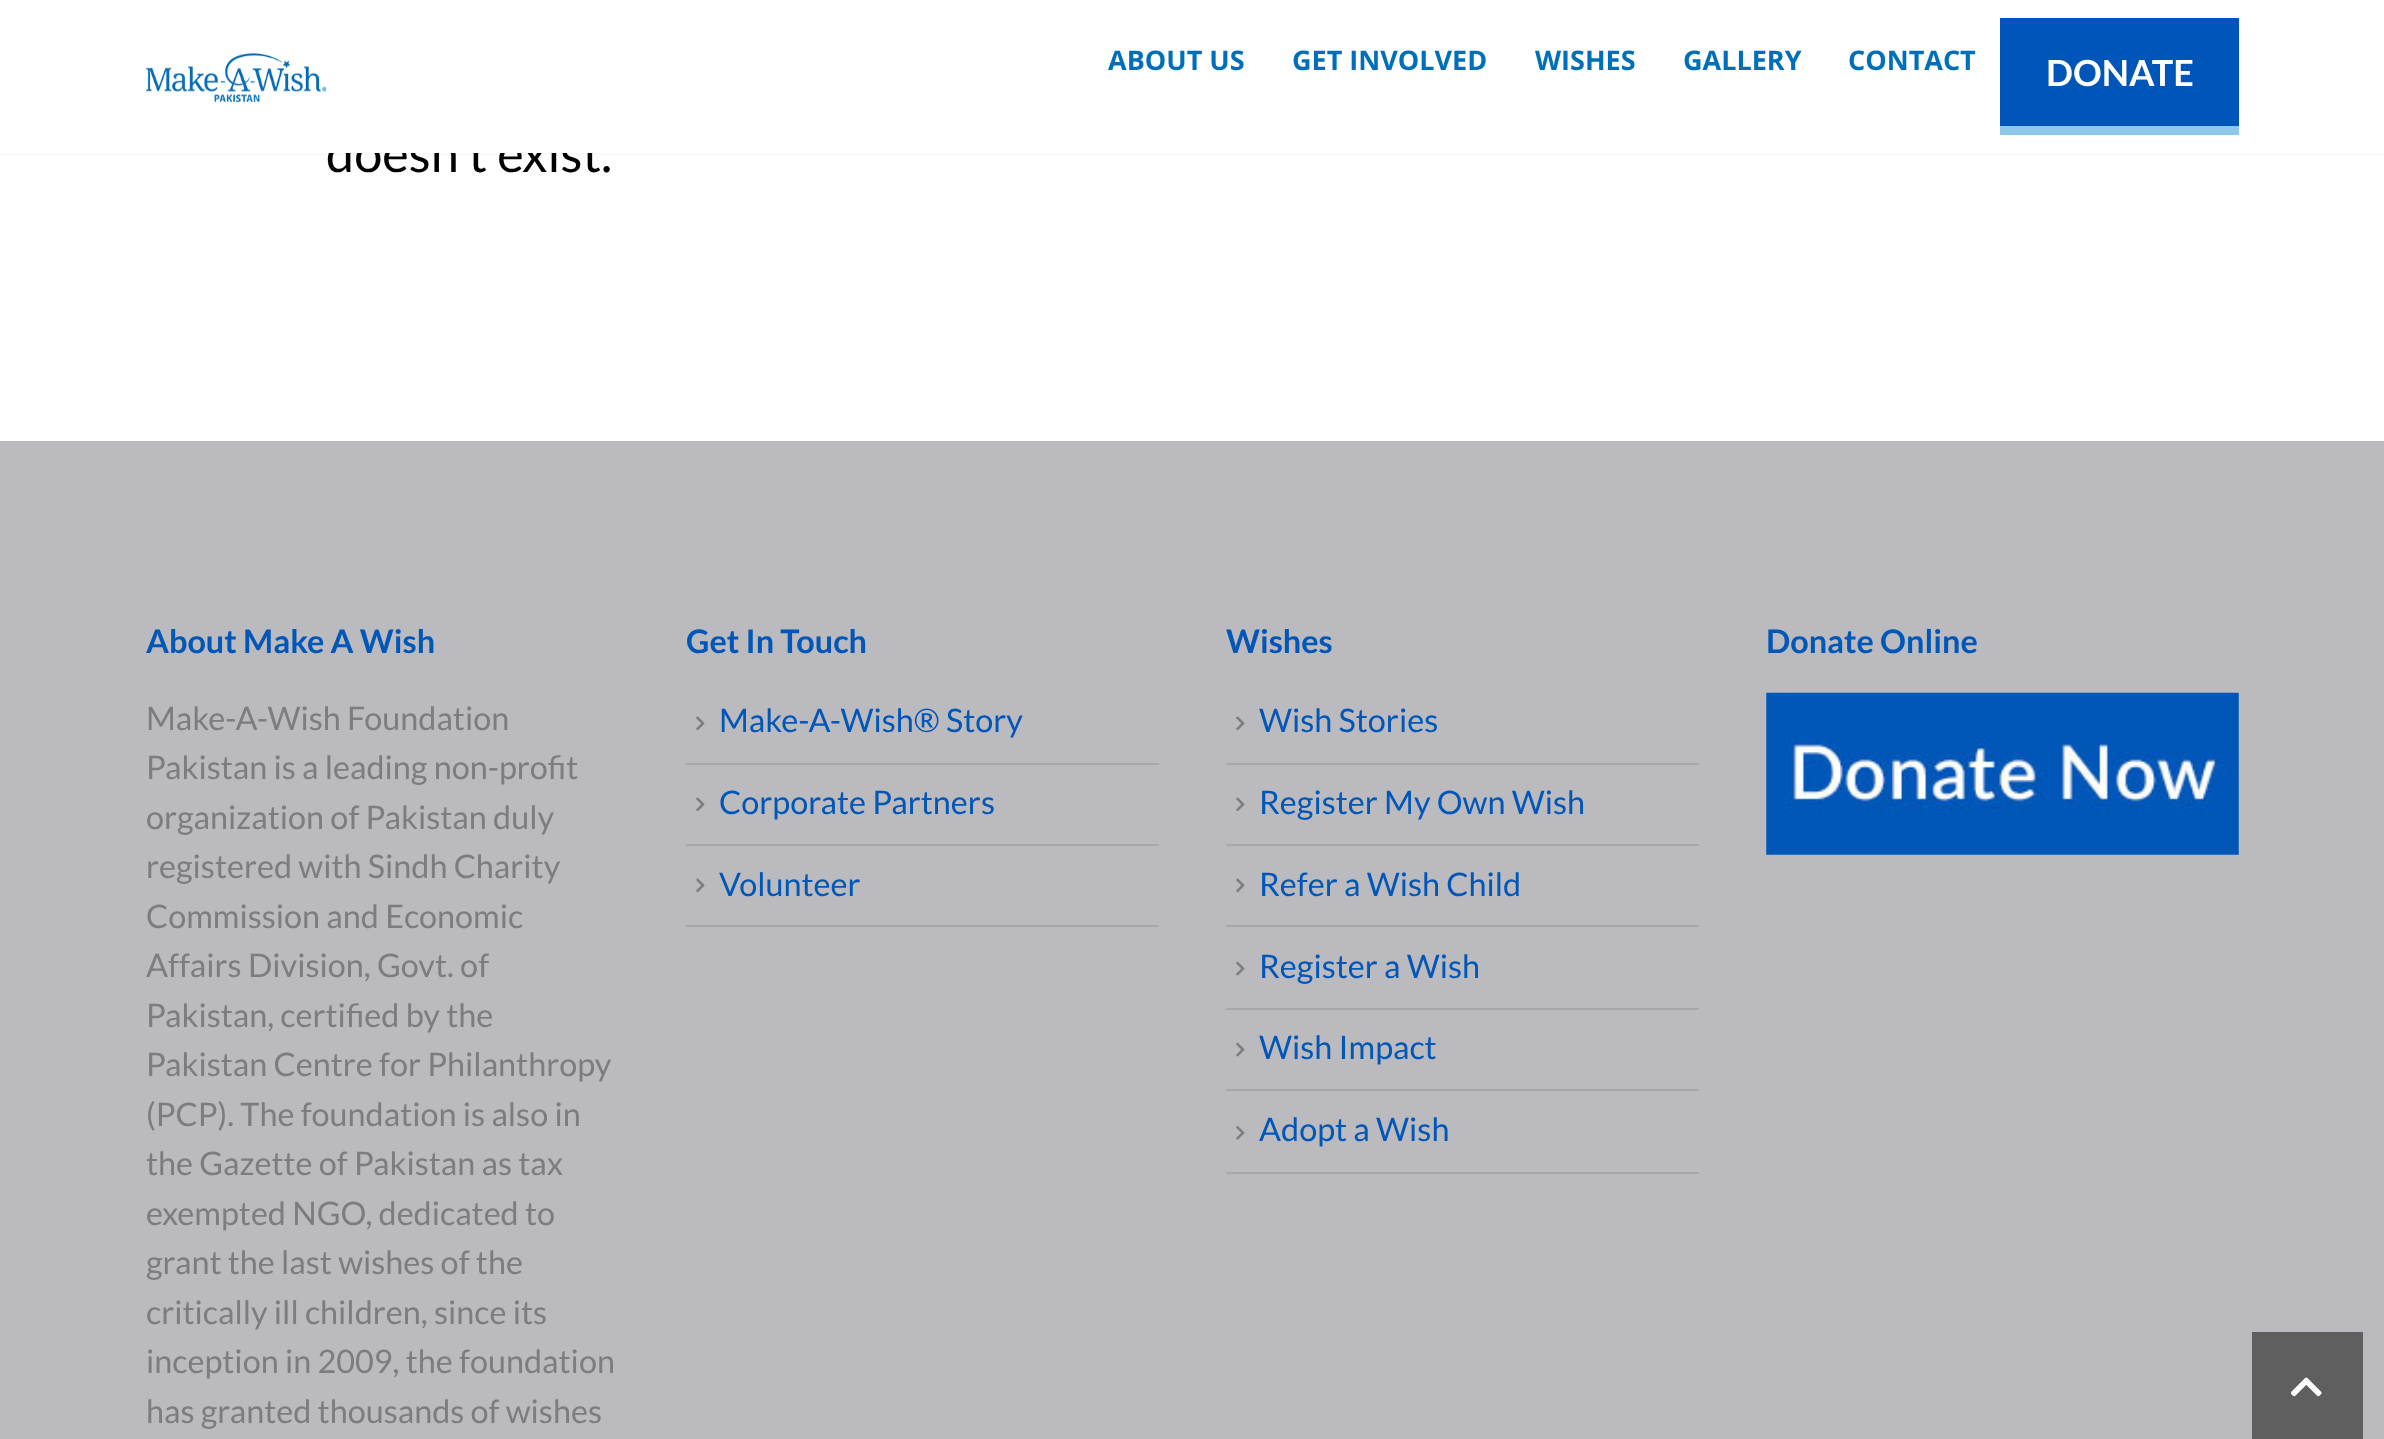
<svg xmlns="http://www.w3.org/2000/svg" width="2384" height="1439">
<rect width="100%" height="100%" fill="#fff"/>
<rect width="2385" height="153" fill="#0000000f" filter="blur(3.5px)"/>
<text x="326" y="172" style="font-family:Lato;font-size:50.5px;fill:#000">doesn't exist.</text>
<rect width="2384" height="153" fill="#fff"/>
<image x="146" y="53" width="181" height="49" href="media/1.png"/>
<text x="1108" y="70" style="font-family:Open Sans;font-size:27px;font-weight:bold;fill:#006fb9">ABOUT US</text>
<text x="1292" y="70" style="font-family:Open Sans;font-size:27px;font-weight:bold;fill:#006fb9">GET INVOLVED</text>
<text x="1535" y="70" style="font-family:Open Sans;font-size:27px;font-weight:bold;fill:#006fb9">WISHES</text>
<text x="1683" y="70" style="font-family:Open Sans;font-size:27px;font-weight:bold;fill:#006fb9">GALLERY</text>
<text x="1848" y="70" style="font-family:Open Sans;font-size:27px;font-weight:bold;fill:#006fb9">CONTACT</text>
<rect x="2000" y="18" width="239" height="108" fill="#0056b8"/>
<rect x="2000" y="126" width="239" height="9" fill="#8dc8e8"/>
<text x="2046" y="86" style="font-family:Lato;font-size:36px;font-weight:bold;fill:#fff">DONATE</text>
<rect y="441" width="2384" height="998" fill="#bbbabf"/>
<text x="146" y="653" style="font-family:Lato;font-size:32.4px;font-weight:bold;fill:#0057b8">About Make A Wish</text>
<text x="146" y="730" style="font-family:Lato;font-size:32.4px;fill:#7d7d7f">Make-A-Wish Foundation</text>
<text x="146" y="779" style="font-family:Lato;font-size:32.4px;fill:#7d7d7f">Pakistan is a leading non-profit</text>
<text x="146" y="829" style="font-family:Lato;font-size:32.4px;fill:#7d7d7f">organization of Pakistan duly</text>
<text x="146" y="878" style="font-family:Lato;font-size:32.4px;fill:#7d7d7f">registered with Sindh Charity</text>
<text x="146" y="928" style="font-family:Lato;font-size:32.4px;fill:#7d7d7f">Commission and Economic</text>
<text x="146" y="977" style="font-family:Lato;font-size:32.4px;fill:#7d7d7f">Affairs Division, Govt. of</text>
<text x="146" y="1027" style="font-family:Lato;font-size:32.4px;fill:#7d7d7f">Pakistan, certified by the</text>
<text x="146" y="1076" style="font-family:Lato;font-size:32.4px;fill:#7d7d7f">Pakistan Centre for Philanthropy</text>
<text x="146" y="1126" style="font-family:Lato;font-size:32.4px;fill:#7d7d7f">(PCP). The foundation is also in</text>
<text x="146" y="1175" style="font-family:Lato;font-size:32.4px;fill:#7d7d7f">the Gazette of Pakistan as tax</text>
<text x="146" y="1225" style="font-family:Lato;font-size:32.4px;fill:#7d7d7f">exempted NGO, dedicated to</text>
<text x="146" y="1274" style="font-family:Lato;font-size:32.4px;fill:#7d7d7f">grant the last wishes of the</text>
<text x="146" y="1324" style="font-family:Lato;font-size:32.4px;fill:#7d7d7f">critically ill children, since its</text>
<text x="146" y="1373" style="font-family:Lato;font-size:32.4px;fill:#7d7d7f">inception in 2009, the foundation</text>
<text x="146" y="1423" style="font-family:Lato;font-size:32.4px;fill:#7d7d7f">has granted thousands of wishes</text>
<text x="686" y="653" style="font-family:Lato;font-size:32.4px;font-weight:bold;fill:#0057b8">Get In Touch</text>
<rect x="686" y="925" width="473" height="2" fill="#a8a8ac"/>
<image x="696" y="716" width="9" height="15" href="media/2.png"/>
<text x="719" y="732" style="font-family:Lato;font-size:32.4px;fill:#0057b8">Make-A-Wish® Story</text>
<rect x="686" y="763" width="473" height="2" fill="#a8a8ac"/>
<image x="696" y="797" width="9" height="15" href="media/2.png"/>
<text x="719" y="814" style="font-family:Lato;font-size:32.4px;fill:#0057b8">Corporate Partners</text>
<rect x="686" y="844" width="473" height="2" fill="#a8a8ac"/>
<image x="696" y="878" width="9" height="15" href="media/2.png"/>
<text x="719" y="896" style="font-family:Lato;font-size:32.4px;fill:#0057b8">Volunteer</text>
<text x="1226" y="653" style="font-family:Lato;font-size:32.4px;font-weight:bold;fill:#0057b8">Wishes</text>
<rect x="1226" y="1172" width="473" height="2" fill="#a8a8ac"/>
<image x="1236" y="716" width="9" height="15" href="media/2.png"/>
<text x="1259" y="732" style="font-family:Lato;font-size:32.4px;fill:#0057b8">Wish Stories</text>
<rect x="1226" y="763" width="473" height="2" fill="#a8a8ac"/>
<image x="1236" y="797" width="9" height="15" href="media/2.png"/>
<text x="1259" y="814" style="font-family:Lato;font-size:32.4px;fill:#0057b8">Register My Own Wish</text>
<rect x="1226" y="844" width="473" height="2" fill="#a8a8ac"/>
<image x="1236" y="878" width="9" height="15" href="media/2.png"/>
<text x="1259" y="896" style="font-family:Lato;font-size:32.4px;fill:#0057b8">Refer a Wish Child</text>
<rect x="1226" y="925" width="473" height="2" fill="#a8a8ac"/>
<image x="1236" y="961" width="9" height="15" href="media/3.png"/>
<text x="1259" y="978" style="font-family:Lato;font-size:32.4px;fill:#0057b8">Register a Wish</text>
<rect x="1226" y="1008" width="473" height="2" fill="#a8a8ac"/>
<image x="1236" y="1042" width="9" height="15" href="media/3.png"/>
<text x="1259" y="1059" style="font-family:Lato;font-size:32.4px;fill:#0057b8">Wish Impact</text>
<rect x="1226" y="1089" width="473" height="2" fill="#a8a8ac"/>
<image x="1236" y="1126" width="9" height="14" href="media/4.png"/>
<text x="1259" y="1141" style="font-family:Lato;font-size:32.4px;fill:#0057b8">Adopt a Wish</text>
<text x="1766" y="653" style="font-family:Lato;font-size:32.4px;font-weight:bold;fill:#0057b8">Donate Online</text>
<image x="1766" y="692" width="473" height="163" href="media/5.png"/>
<rect x="2252" y="1332" width="111" height="107" fill="#5f5f60"/>
<image x="2291" y="1377" width="31" height="20" href="media/6.png"/>
</svg>
